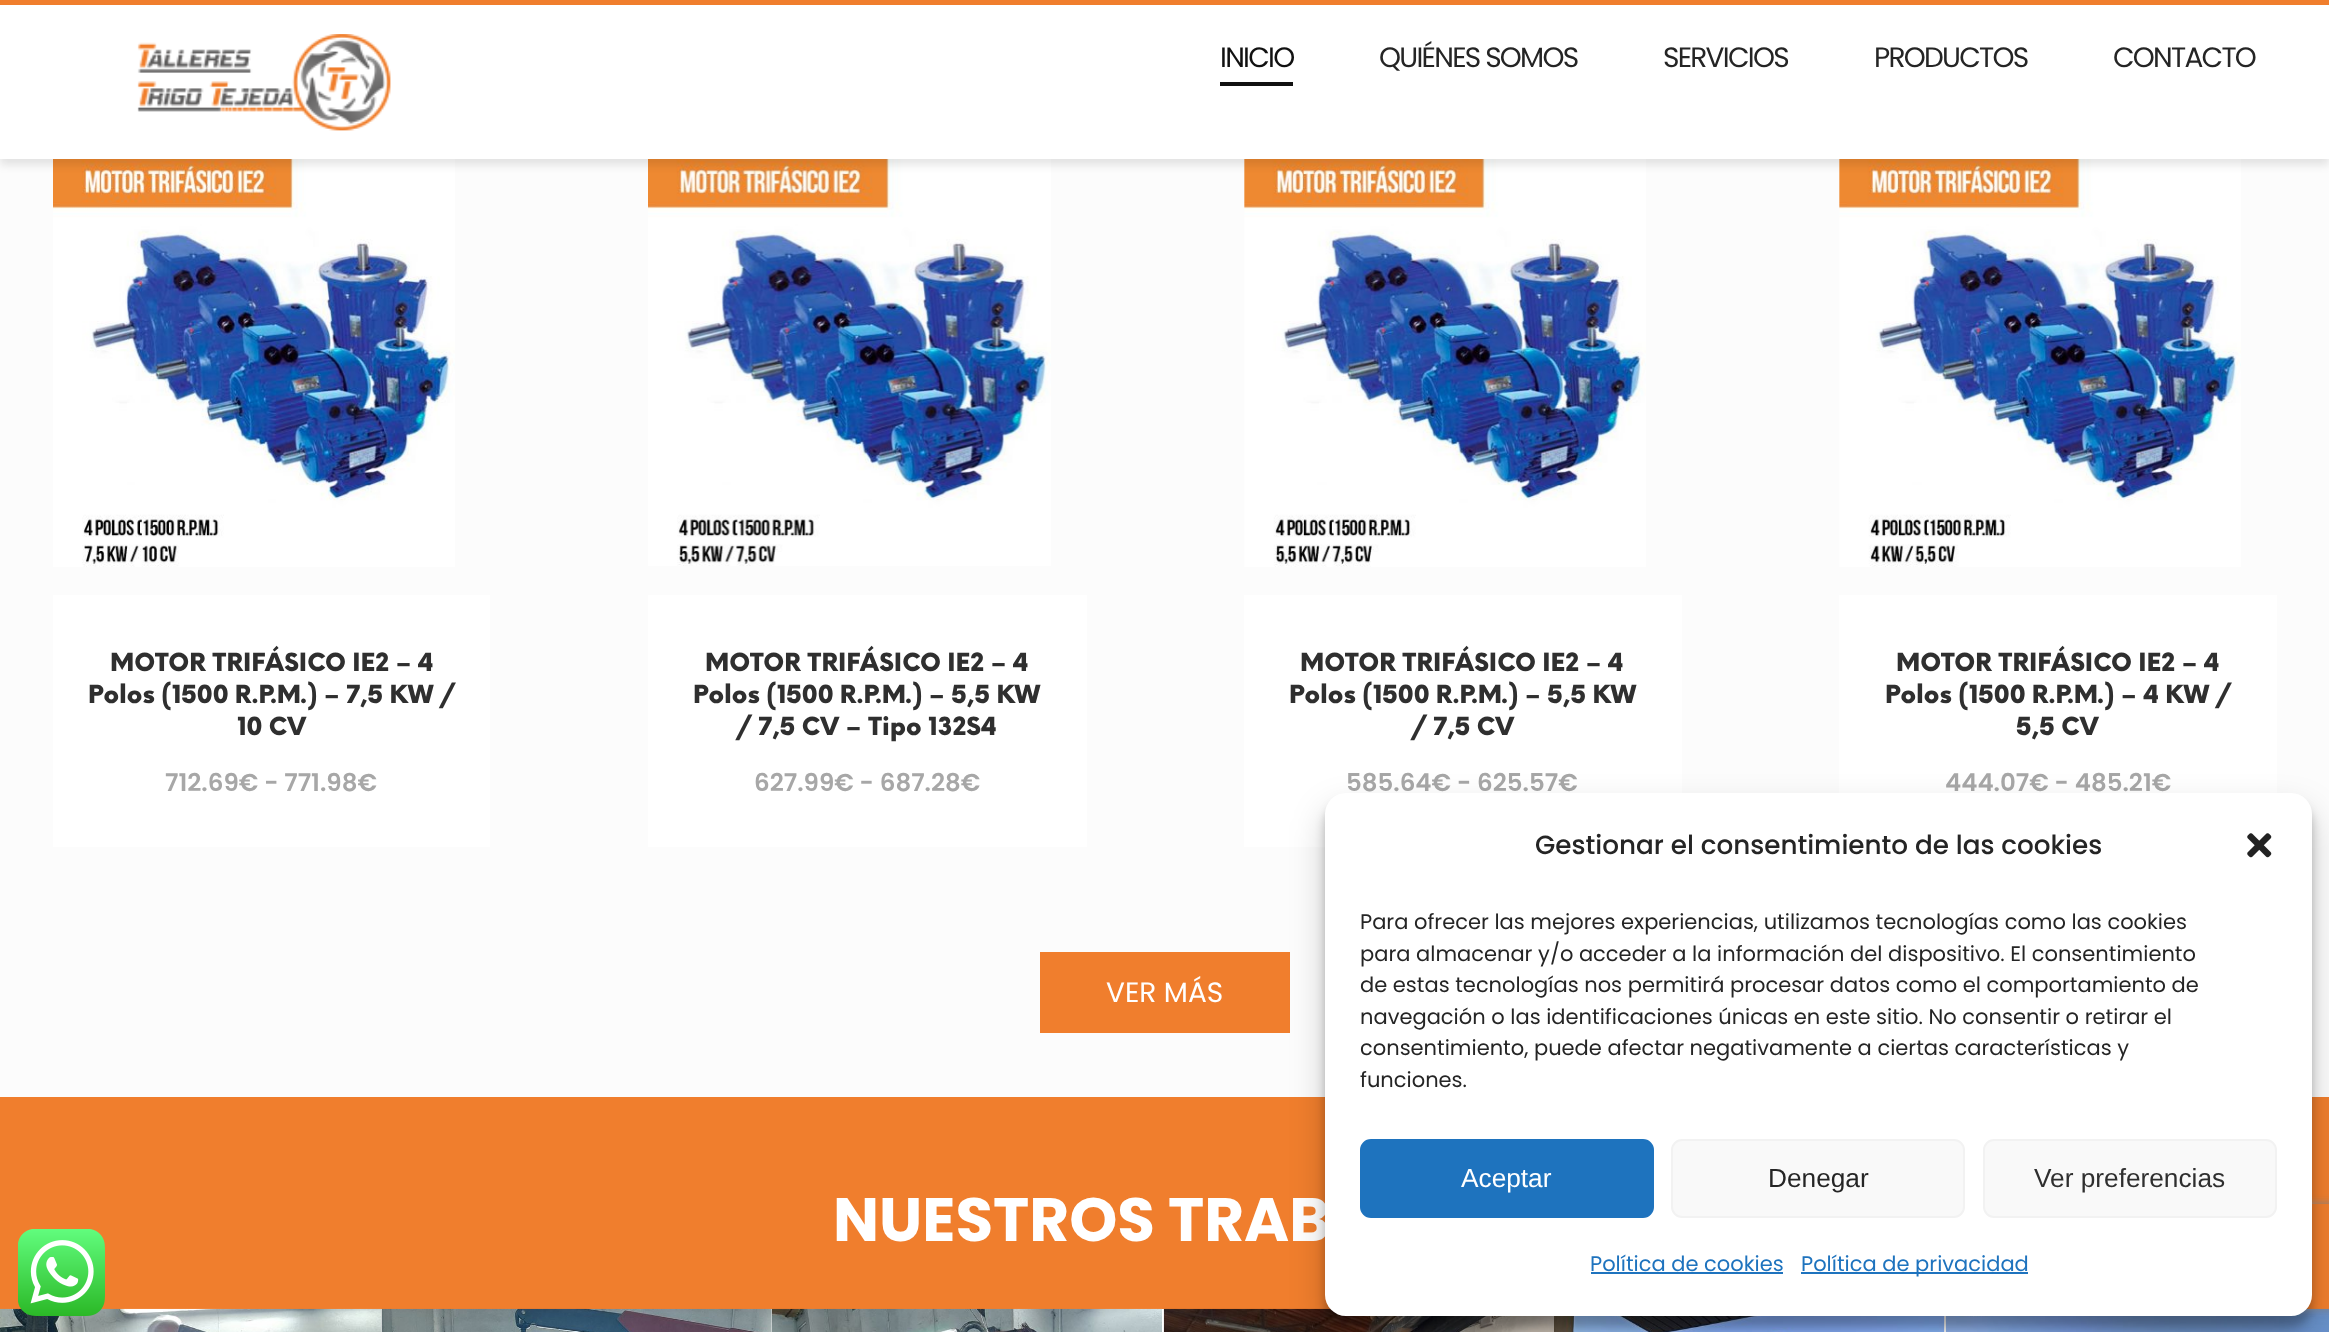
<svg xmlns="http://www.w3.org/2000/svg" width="2329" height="1332">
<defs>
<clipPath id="clip1"><path d="M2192 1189h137v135h-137zm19 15h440c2 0 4 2 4 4v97c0 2-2 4-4 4h-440c-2 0-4-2-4-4v-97c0-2 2-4 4-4z" clip-rule="evenodd"/></clipPath>
</defs>
<rect width="100%" height="100%" fill="#fff"/>
<rect y="159" width="2329" height="938" fill="#fcfcfc"/>
<image x="53" y="159" width="402" height="408" href="media/2.png"/>
<image x="648" y="159" width="403" height="407" href="media/3.png"/>
<image x="1244" y="159" width="402" height="408" href="media/4.png"/>
<image x="1839" y="159" width="402" height="408" href="media/5.png"/>
<rect y="5" width="2329" height="160" fill="#0000001a" filter="blur(4.5px)"/>
<rect y="5" width="2329" height="154" fill="#fff"/>
<rect width="2329" height="5" fill="#f07e2d"/>
<image x="137" y="34" width="254" height="97" href="media/1.png"/>
<text x="1220" y="67" style="font-family:Poppins;font-size:28px;letter-spacing:-1.75px;fill:#111">INICIO</text>
<rect x="1220" y="82" width="73" height="4" fill="#111"/>
<text x="1379" y="67" style="font-family:Poppins;font-size:28px;letter-spacing:-1.75px;fill:#252525">QUIÉNES SOMOS</text>
<text x="1663" y="67" style="font-family:Poppins;font-size:28px;letter-spacing:-1.75px;fill:#252525">SERVICIOS</text>
<text x="1874" y="67" style="font-family:Poppins;font-size:28px;letter-spacing:-1.75px;fill:#252525">PRODUCTOS</text>
<text x="2113" y="67" style="font-family:Poppins;font-size:28px;letter-spacing:-1.75px;fill:#252525">CONTACTO</text>
<rect x="53" y="595" width="437" height="252" fill="#fff"/>
<text x="110" y="671" style="font-family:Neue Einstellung;font-size:24.5px;font-weight:900;fill:#2f2f2f">MOTOR TRIFÁSICO IE2 – 4</text>
<text x="88" y="703" style="font-family:Neue Einstellung;font-size:24.5px;font-weight:900;fill:#2f2f2f">Polos (1500 R.P.M.) – 7,5 KW /</text>
<text x="237" y="735" style="font-family:Neue Einstellung;font-size:24.5px;font-weight:900;fill:#2f2f2f">10 CV</text>
<text x="165" y="791" style="font-family:Poppins;font-size:24.5px;font-weight:600;fill:#a7a7a7">712.69€ - 771.98€</text>
<rect x="648" y="595" width="439" height="252" fill="#fff"/>
<text x="705" y="671" style="font-family:Neue Einstellung;font-size:24.5px;font-weight:900;fill:#2f2f2f">MOTOR TRIFÁSICO IE2 – 4</text>
<text x="693" y="703" style="font-family:Neue Einstellung;font-size:24.5px;font-weight:900;fill:#2f2f2f">Polos (1500 R.P.M.) – 5,5 KW</text>
<text x="736" y="735" style="font-family:Neue Einstellung;font-size:24.5px;font-weight:900;fill:#2f2f2f">/ 7,5 CV – Tipo 132S4</text>
<text x="754" y="791" style="font-family:Poppins;font-size:24.5px;font-weight:600;fill:#a7a7a7">627.99€ - 687.28€</text>
<rect x="1244" y="595" width="438" height="252" fill="#fff"/>
<text x="1300" y="671" style="font-family:Neue Einstellung;font-size:24.5px;font-weight:900;fill:#2f2f2f">MOTOR TRIFÁSICO IE2 – 4</text>
<text x="1289" y="703" style="font-family:Neue Einstellung;font-size:24.5px;font-weight:900;fill:#2f2f2f">Polos (1500 R.P.M.) – 5,5 KW</text>
<text x="1411" y="735" style="font-family:Neue Einstellung;font-size:24.5px;font-weight:900;fill:#2f2f2f">/ 7,5 CV</text>
<text x="1346" y="791" style="font-family:Poppins;font-size:24.5px;font-weight:600;fill:#a7a7a7">585.64€ - 625.57€</text>
<rect x="1839" y="595" width="438" height="198" fill="#fff"/>
<text x="1896" y="671" style="font-family:Neue Einstellung;font-size:24.5px;font-weight:900;fill:#2f2f2f">MOTOR TRIFÁSICO IE2 – 4</text>
<text x="1885" y="703" style="font-family:Neue Einstellung;font-size:24.5px;font-weight:900;fill:#2f2f2f">Polos (1500 R.P.M.) – 4 KW /</text>
<text x="2016" y="735" style="font-family:Neue Einstellung;font-size:24.5px;font-weight:900;fill:#2f2f2f">5,5 CV</text>
<text x="1945" y="791" style="font-family:Poppins;font-size:24.5px;font-weight:600;fill:#a7a7a7">444.07€ - 485.21€</text>
<rect x="1040" y="952" width="250" height="81" fill="#f07e2d"/>
<text x="1106" y="1002" style="font-family:Poppins;font-size:28px;fill:#fff">VER MÁS</text>
<rect y="1097" width="2329" height="212" fill="#f07e2d"/>
<text x="833" y="1241" style="font-family:Poppins;font-size:61.25px;font-weight:bold;fill:#fff">NUESTROS TRAB</text>
<image x="0" y="1308" width="382" height="24" href="media/6.png"/>
<image x="381" y="1308" width="391" height="24" href="media/7.png"/>
<image x="771" y="1308" width="391" height="24" href="media/8.png"/>
<image x="1163" y="1308" width="391" height="24" href="media/9.png"/>
<image x="1554" y="1316" width="391" height="16" href="media/10.png"/>
<image x="1946" y="1308" width="383" height="24" href="media/11.png"/>
<image x="18" y="1229" width="87" height="87" href="media/12.png"/>
<rect x="1325" y="803" width="987" height="524" rx="21" fill="#0000003b" filter="blur(5px)"/>
<rect x="1325" y="810" width="987" height="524" rx="21" fill="#00000030" filter="blur(17.5px)"/>
<g clip-path="url(#clip1)">
<rect x="2207" y="1204" width="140" height="105" rx="4" fill="#808080" filter="blur(4.5px)"/>
</g>
<rect x="1325" y="793" width="987" height="523" rx="21" fill="#fff"/>
<text x="1535" y="854" style="font-family:Poppins;font-size:26.25px;font-weight:500;fill:#252525">Gestionar el consentimiento de las cookies</text>
<image x="2247" y="833" width="25" height="25" href="media/13.png"/>
<text x="1360" y="929" style="font-family:Poppins;font-size:21px;fill:#252525">Para ofrecer las mejores experiencias, utilizamos tecnologías como las cookies</text>
<text x="1360" y="961" style="font-family:Poppins;font-size:21px;fill:#252525">para almacenar y/o acceder a la información del dispositivo. El consentimiento</text>
<text x="1360" y="992" style="font-family:Poppins;font-size:21px;fill:#252525">de estas tecnologías nos permitirá procesar datos como el comportamiento de</text>
<text x="1360" y="1024" style="font-family:Poppins;font-size:21px;fill:#252525">navegación o las identificaciones únicas en este sitio. No consentir o retirar el</text>
<text x="1360" y="1055" style="font-family:Poppins;font-size:21px;fill:#252525">consentimiento, puede afectar negativamente a ciertas características y</text>
<text x="1360" y="1087" style="font-family:Poppins;font-size:21px;fill:#252525">funciones.</text>
<rect x="1361" y="1140" width="292" height="77" rx="10" fill="#1e73be" stroke="#1e73be" stroke-width="2"/>
<text x="1461" y="1187" style="font-family:Liberation Sans;font-size:26.25px;fill:#fff">Aceptar</text>
<rect x="1672" y="1140" width="292" height="77" rx="10" fill="#f9f9f9" stroke="#f2f2f2" stroke-width="2"/>
<text x="1768" y="1187" style="font-family:Liberation Sans;font-size:26.25px;fill:#252525">Denegar</text>
<rect x="1984" y="1140" width="292" height="77" rx="10" fill="#f9f9f9" stroke="#f2f2f2" stroke-width="2"/>
<text x="2034" y="1187" style="font-family:Liberation Sans;font-size:26.25px;fill:#2f2f2f">Ver preferencias</text>
<text x="1590" y="1271" style="font-family:Poppins;font-size:21px;fill:#1e73be">Política de cookies</text>
<rect x="1591" y="1272" width="192" height="2" fill="#1e73be"/>
<rect x="1801" y="1272" width="227" height="2" fill="#1e73be"/>
<text x="1801" y="1271" style="font-family:Poppins;font-size:21px;fill:#1e73be">Política de privacidad</text>
</svg>
